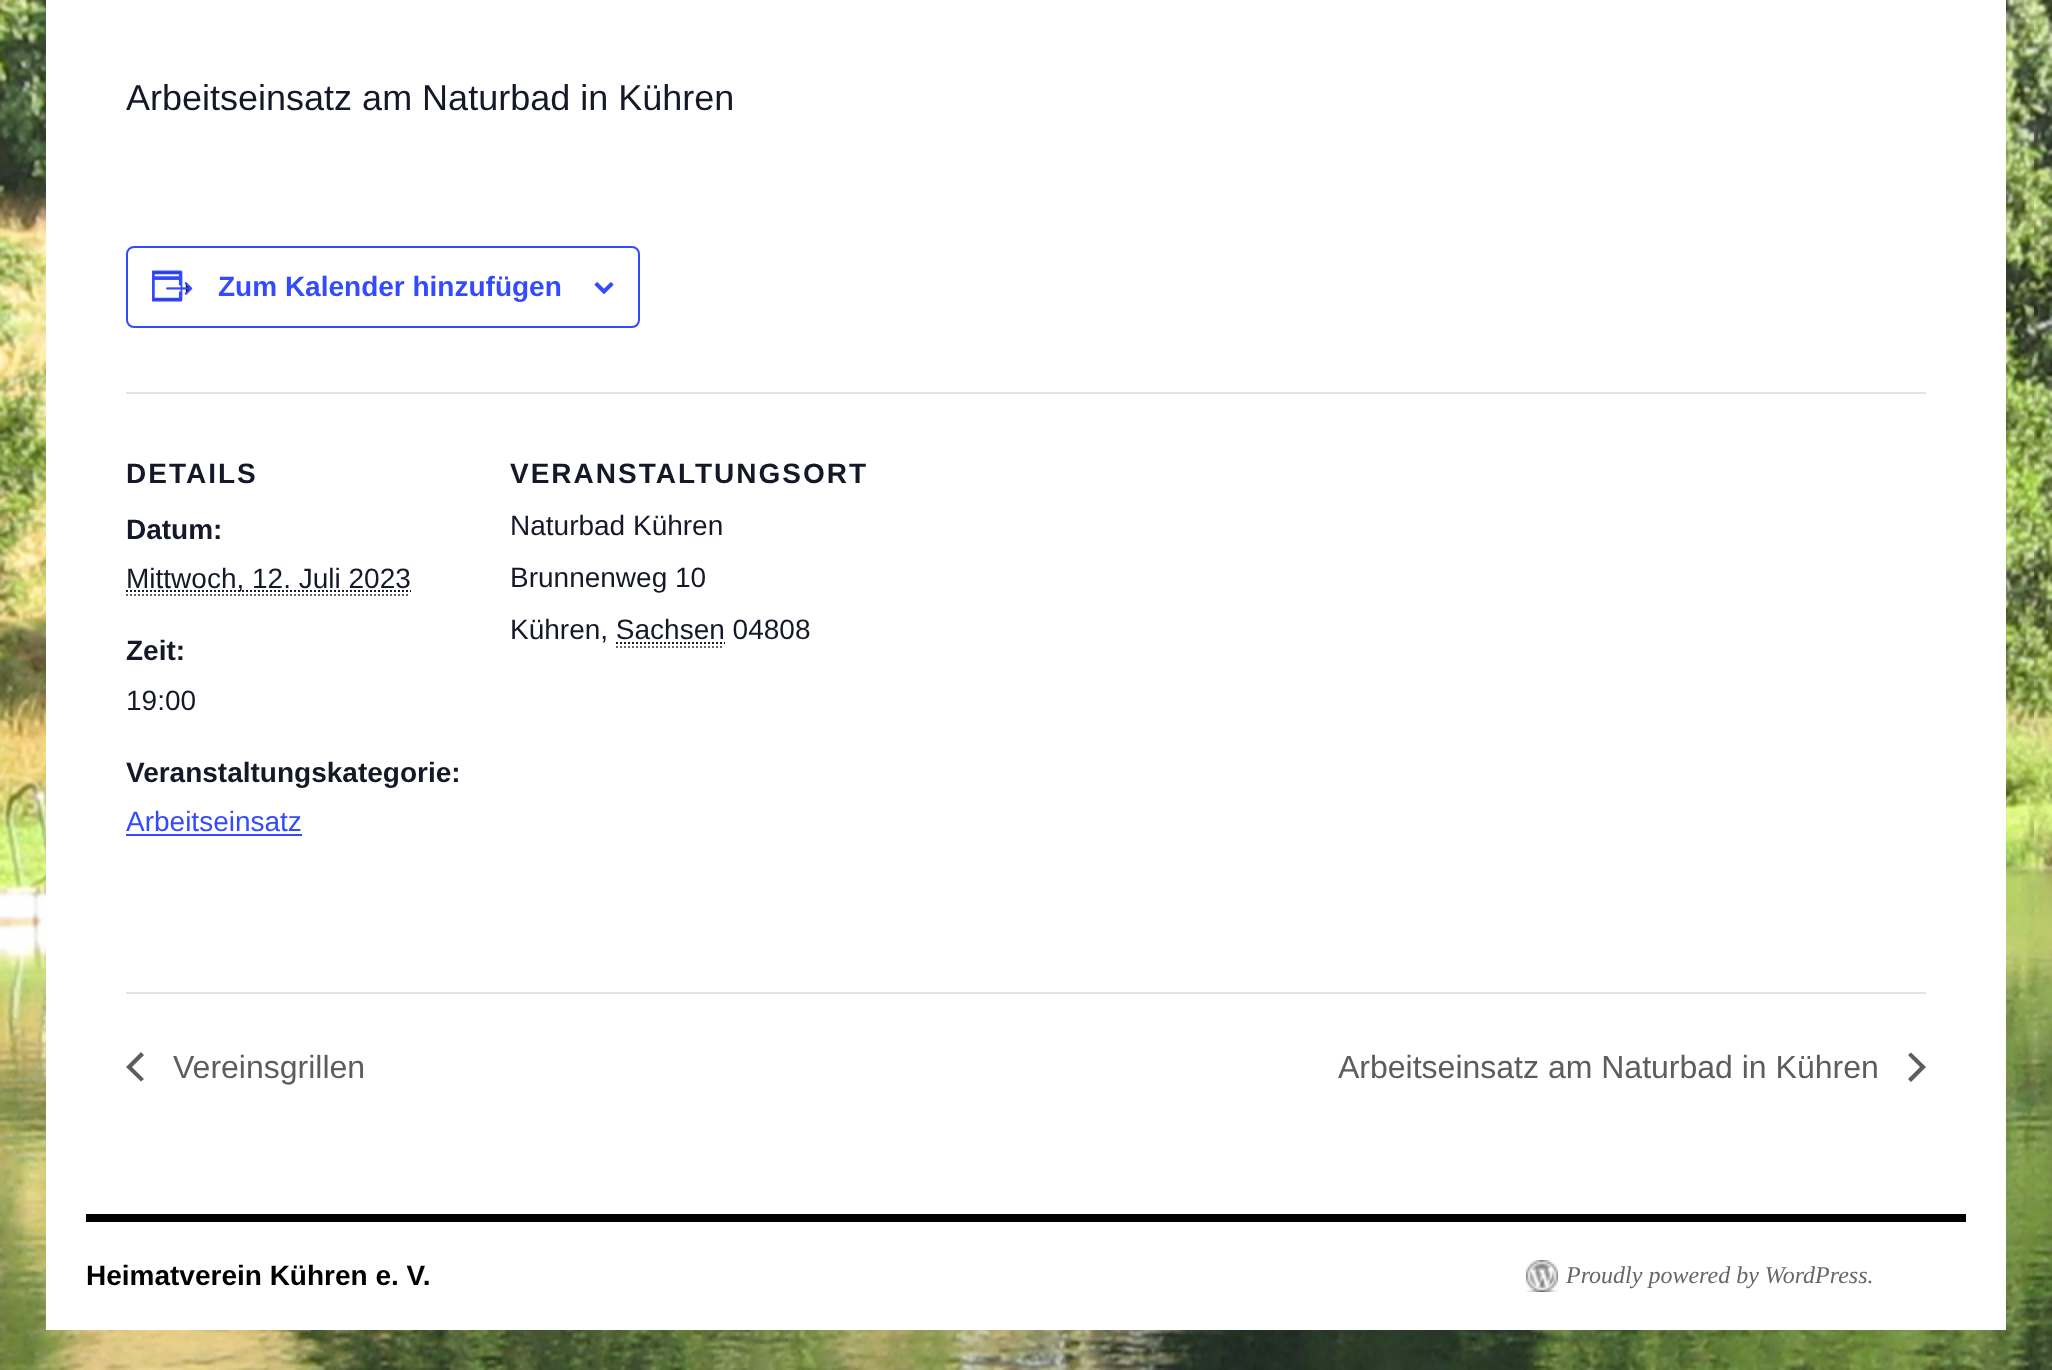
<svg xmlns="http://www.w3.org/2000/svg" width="2052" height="1370">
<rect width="100%" height="100%" fill="#fff"/>
<image x="0" y="0" width="2052" height="1370" href="media/1.png"/>
<rect x="46" width="1960" height="1330" fill="#fff"/>
<text x="126" y="110" style="font-family:Liberation Sans;font-size:36px;fill:#141827">Arbeitseinsatz am Naturbad in Kühren</text>
<rect x="127" y="247" width="512" height="80" rx="7" fill="none" stroke="#334aff" stroke-width="2"/>
<image x="152" y="270" width="41" height="32" href="media/2.png"/>
<text x="218" y="296" style="font-family:Liberation Sans;font-size:28px;font-weight:bold;fill:#334aff">Zum Kalender hinzufügen</text>
<image x="594" y="282" width="20" height="12" href="media/3.png"/>
<rect x="126" y="392" width="1800" height="2" fill="#e4e4e4"/>
<text x="126" y="483" style="font-family:Liberation Sans;font-size:28px;font-weight:bold;letter-spacing:2px;fill:#141827">DETAILS</text>
<text x="126" y="539" style="font-family:Liberation Sans;font-size:28px;font-weight:bold;fill:#141827">Datum:</text>
<path d="M126 591h285" fill="none" stroke="#141827" stroke-width="2" stroke-dasharray="2 2"/>
<text x="126" y="588" style="font-family:Liberation Sans;font-size:28px;fill:#141827">Mittwoch, 12. Juli 2023</text>
<path d="M126 595h284" fill="none" stroke="#666" stroke-width="2" stroke-dasharray="2 2"/>
<text x="126" y="660" style="font-family:Liberation Sans;font-size:28px;font-weight:bold;fill:#141827">Zeit:</text>
<text x="126" y="710" style="font-family:Liberation Sans;font-size:28px;fill:#141827">19:00</text>
<text x="126" y="782" style="font-family:Liberation Sans;font-size:28px;font-weight:bold;fill:#141827">Veranstaltungskategorie:</text>
<text x="126" y="831" style="font-family:Liberation Sans;font-size:28px;fill:#334aff">Arbeitseinsatz</text>
<rect x="126" y="834" width="176" height="2" fill="#334aff"/>
<text x="510" y="483" style="font-family:Liberation Sans;font-size:28px;font-weight:bold;letter-spacing:2px;fill:#141827">VERANSTALTUNGSORT</text>
<text x="510" y="535" style="font-family:Liberation Sans;font-size:28px;fill:#141827">Naturbad Kühren</text>
<text x="510" y="587" style="font-family:Liberation Sans;font-size:28px;fill:#141827">Brunnenweg 10</text>
<text x="510" y="639" style="font-family:Liberation Sans;font-size:28px;fill:#141827">Kühren, Sachsen 04808</text>
<path d="M616 647h108" fill="none" stroke="#666" stroke-width="2" stroke-dasharray="2 2"/>
<path d="M616 643h109" fill="none" stroke="#141827" stroke-width="2" stroke-dasharray="2 2"/>
<rect x="126" y="992" width="1800" height="2" fill="#e4e4e4"/>
<path d="M144 1079l-3 2.5l-15-14.5l15-15l3 3l-12 12z" fill="#5d5d5d"/>
<text x="173" y="1078" style="font-family:Liberation Sans;font-size:32px;fill:#5d5d5d">Vereinsgrillen</text>
<text x="1338" y="1078" style="font-family:Liberation Sans;font-size:32px;fill:#5d5d5d">Arbeitseinsatz am Naturbad in Kühren</text>
<path d="M1908 1055l3-2.5l15 14.5l-15 15l-3-3l12-12z" fill="#5d5d5d"/>
<rect x="86" y="1214" width="1880" height="8" fill="#000"/>
<text x="86" y="1285" style="font-family:Liberation Sans;font-size:28px;font-weight:bold;fill:#000">Heimatverein Kühren e. V.</text>
<image x="1526" y="1260" width="32" height="32" href="media/4.png"/>
<text x="1566" y="1283" style="font-family:Liberation Serif;font-size:24px;font-style:italic;fill:#666">Proudly powered by WordPress.</text>
</svg>
